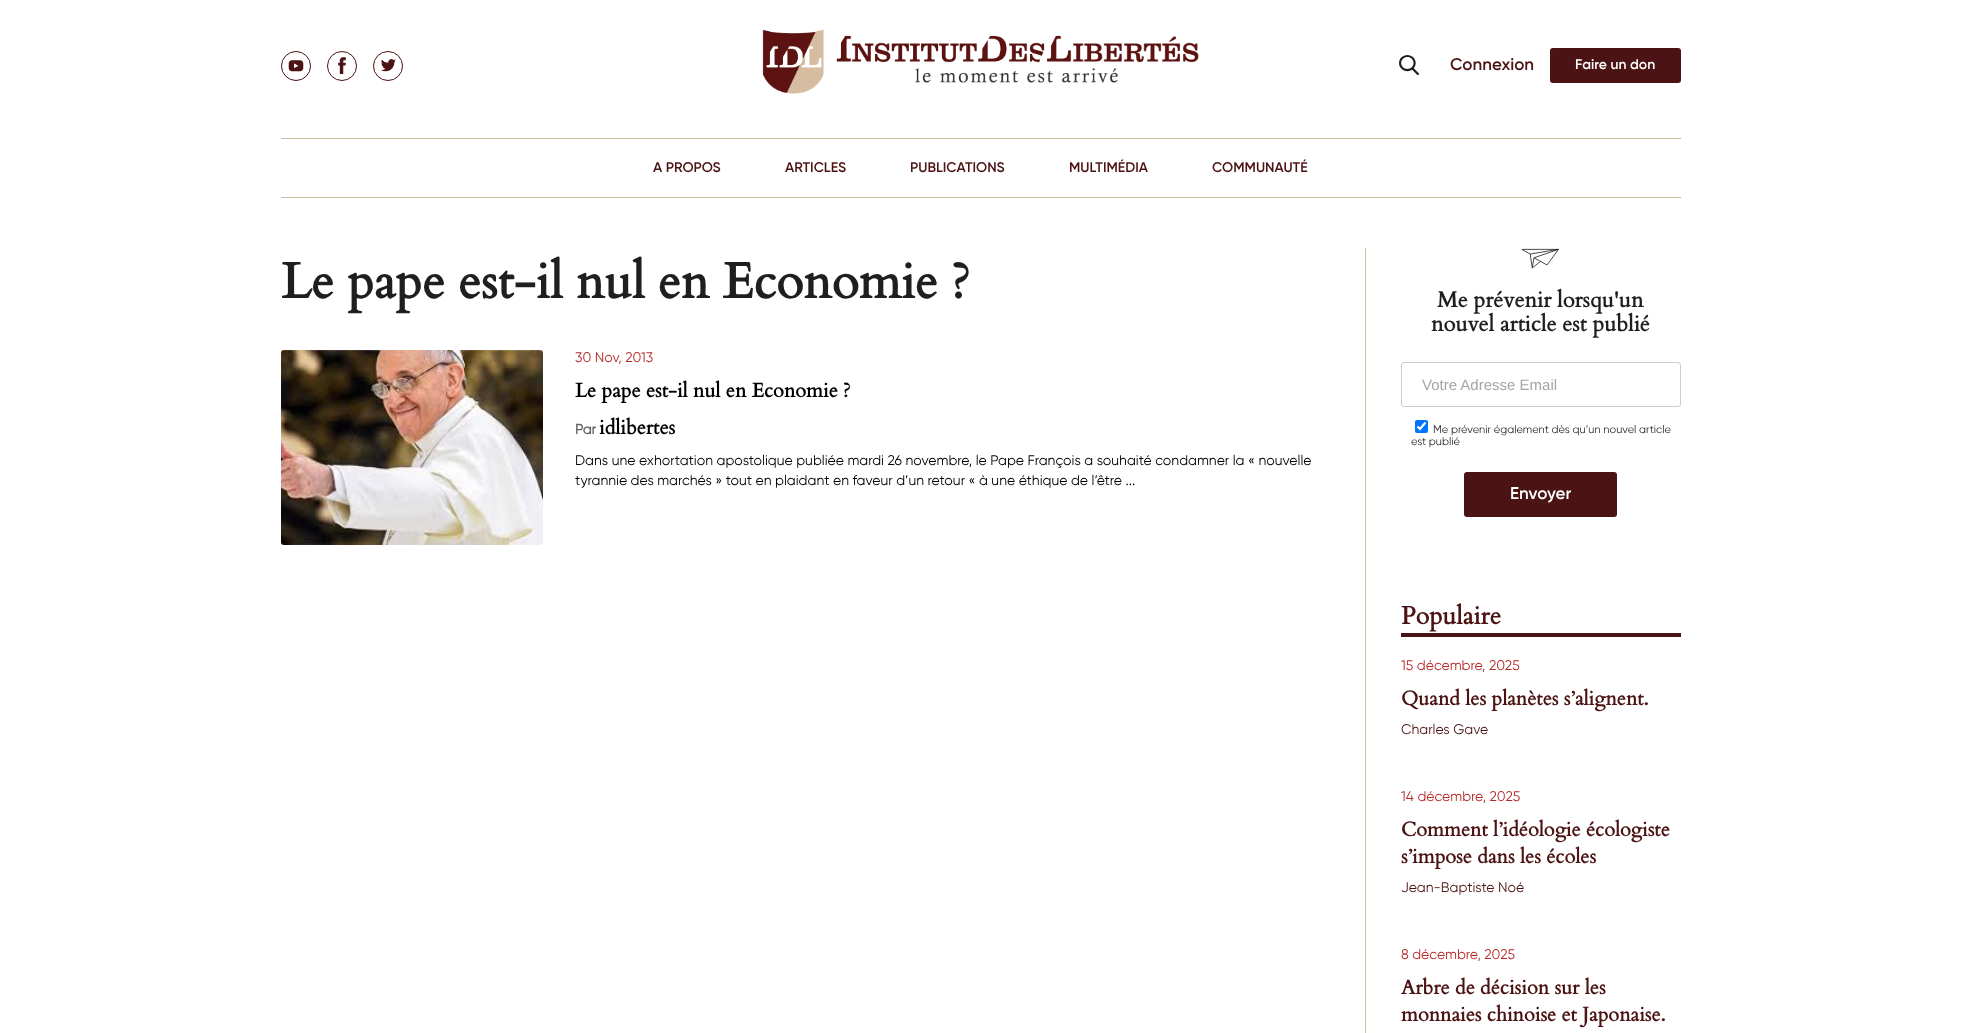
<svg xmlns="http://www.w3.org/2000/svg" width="1961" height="1033">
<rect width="100%" height="100%" fill="#fff"/>
<rect x="281" y="138" width="1400" height="1" fill="#cdbda2"/>
<circle cx="296" cy="66" r="14.5" fill="none" stroke="#4b1313"/>
<image x="288" y="60" width="16" height="12" href="media/1.png"/>
<circle cx="342" cy="66" r="14.5" fill="none" stroke="#4b1313"/>
<image x="338" y="57" width="8" height="17" href="media/2.png"/>
<circle cx="388" cy="66" r="14.5" fill="none" stroke="#4b1313"/>
<image x="381" y="59" width="15" height="13" href="media/3.png"/>
<image x="762" y="29" width="437" height="65" href="media/4.png"/>
<image x="1399" y="55" width="20" height="20" href="media/5.png"/>
<text x="1450" y="70" style="font-family:Gilroy;font-size:17px;font-weight:600;fill:#4b1313">Connexion</text>
<rect x="1550" y="48" width="131" height="35" rx="3" fill="#4b1313"/>
<text x="1575" y="69" style="font-family:Gilroy;font-size:14px;font-weight:600;fill:#fff">Faire un don</text>
<text x="653" y="172" style="font-family:Gilroy;font-size:14px;font-weight:600;fill:#4b1313">A PROPOS</text>
<text x="785" y="172" style="font-family:Gilroy;font-size:14px;font-weight:600;fill:#4b1313">ARTICLES</text>
<text x="910" y="172" style="font-family:Gilroy;font-size:14px;font-weight:600;fill:#4b1313">PUBLICATIONS</text>
<text x="1069" y="172" style="font-family:Gilroy;font-size:14px;font-weight:600;fill:#4b1313">MULTIMÉDIA</text>
<text x="1212" y="172" style="font-family:Gilroy;font-size:14px;font-weight:600;fill:#4b1313">COMMUNAUTÉ</text>
<rect x="281" y="197" width="1400" height="1" fill="#cdbda2"/>
<text x="281" y="298" style="font-family:Cardo;font-size:50px;font-weight:bold;fill:#1f1f1f">Le pape est-il nul en Economie ?</text>
<image x="281" y="350" width="262" height="195" href="media/6.png"/>
<text x="575" y="362" style="font-family:Gilroy;font-size:14px;fill:#b72a2a">30 Nov, 2013</text>
<text x="575" y="397" style="font-family:Cardo;font-size:20px;font-weight:bold;fill:#000">Le pape est-il nul en Economie ?</text>
<text x="575" y="434" style="font-family:Gilroy;font-size:14px;font-weight:bold;fill:#626262">Par</text>
<text x="599" y="434" style="font-family:Cardo;font-size:20px;font-weight:bold;fill:#000">idlibertes</text>
<text x="575" y="465" style="font-family:Gilroy;font-size:14px;fill:#000">Dans une exhortation apostolique publiée mardi 26 novembre, le Pape François a souhaité condamner la « nouvelle</text>
<text x="575" y="485" style="font-family:Gilroy;font-size:14px;fill:#000">tyrannie des marchés » tout en plaidant en faveur d’un retour « à une éthique de l’être ...</text>
<rect x="1365" y="248" width="1" height="785" fill="#cdbda2"/>
<image x="1521" y="248" width="38" height="21" href="media/7.png"/>
<text x="1437" y="307" style="font-family:Cardo;font-size:22px;font-weight:bold;fill:#1f1f1f">Me prévenir lorsqu'un</text>
<text x="1431" y="331" style="font-family:Cardo;font-size:22px;font-weight:bold;fill:#1f1f1f">nouvel article est publié</text>
<rect x="1401.5" y="362.5" width="279" height="44" rx="2.5" fill="none" stroke="#ccc"/>
<text x="1422" y="390" style="font-family:Liberation Sans;font-size:15px;fill:#a5a5a5">Votre Adresse Email</text>
<rect x="1415" y="420" width="13" height="13" rx="2" fill="#0075ff"/>
<path d="M1417.5 426.5l2.5 2.5l5.5-6.5" fill="none" stroke="#fff" stroke-width="2.1"/>
<text x="1433" y="433" style="font-family:Gilroy;font-size:11px;fill:#1f1f1f">Me prévenir également dès qu’un nouvel article</text>
<text x="1411" y="445" style="font-family:Gilroy;font-size:11px;fill:#1f1f1f">est publié</text>
<rect x="1464" y="472" width="153" height="45" rx="3" fill="#4b1313"/>
<text x="1510" y="499" style="font-family:Gilroy;font-size:17px;font-weight:600;fill:#fff">Envoyer</text>
<rect x="1401" y="633" width="280" height="4" fill="#4b1313"/>
<text x="1401" y="624" style="font-family:Cardo;font-size:25px;font-weight:bold;fill:#4b1313">Populaire</text>
<text x="1401" y="670" style="font-family:Gilroy;font-size:14px;fill:#b72a2a">15 décembre, 2025</text>
<text x="1401" y="705" style="font-family:Cardo;font-size:20px;font-weight:bold;fill:#4b1313">Quand les planètes s’alignent.</text>
<text x="1401" y="734" style="font-family:Gilroy;font-size:14px;fill:#4b1313">Charles Gave</text>
<text x="1401" y="801" style="font-family:Gilroy;font-size:14px;fill:#b72a2a">14 décembre, 2025</text>
<text x="1401" y="836" style="font-family:Cardo;font-size:20px;font-weight:bold;fill:#4b1313">Comment l’idéologie écologiste</text>
<text x="1401" y="863" style="font-family:Cardo;font-size:20px;font-weight:bold;fill:#4b1313">s’impose dans les écoles</text>
<text x="1401" y="892" style="font-family:Gilroy;font-size:14px;fill:#4b1313">Jean-Baptiste Noé</text>
<text x="1401" y="959" style="font-family:Gilroy;font-size:14px;fill:#b72a2a">8 décembre, 2025</text>
<text x="1401" y="994" style="font-family:Cardo;font-size:20px;font-weight:bold;fill:#4b1313">Arbre de décision sur les</text>
<text x="1401" y="1021" style="font-family:Cardo;font-size:20px;font-weight:bold;fill:#4b1313">monnaies chinoise et Japonaise.</text>
</svg>
